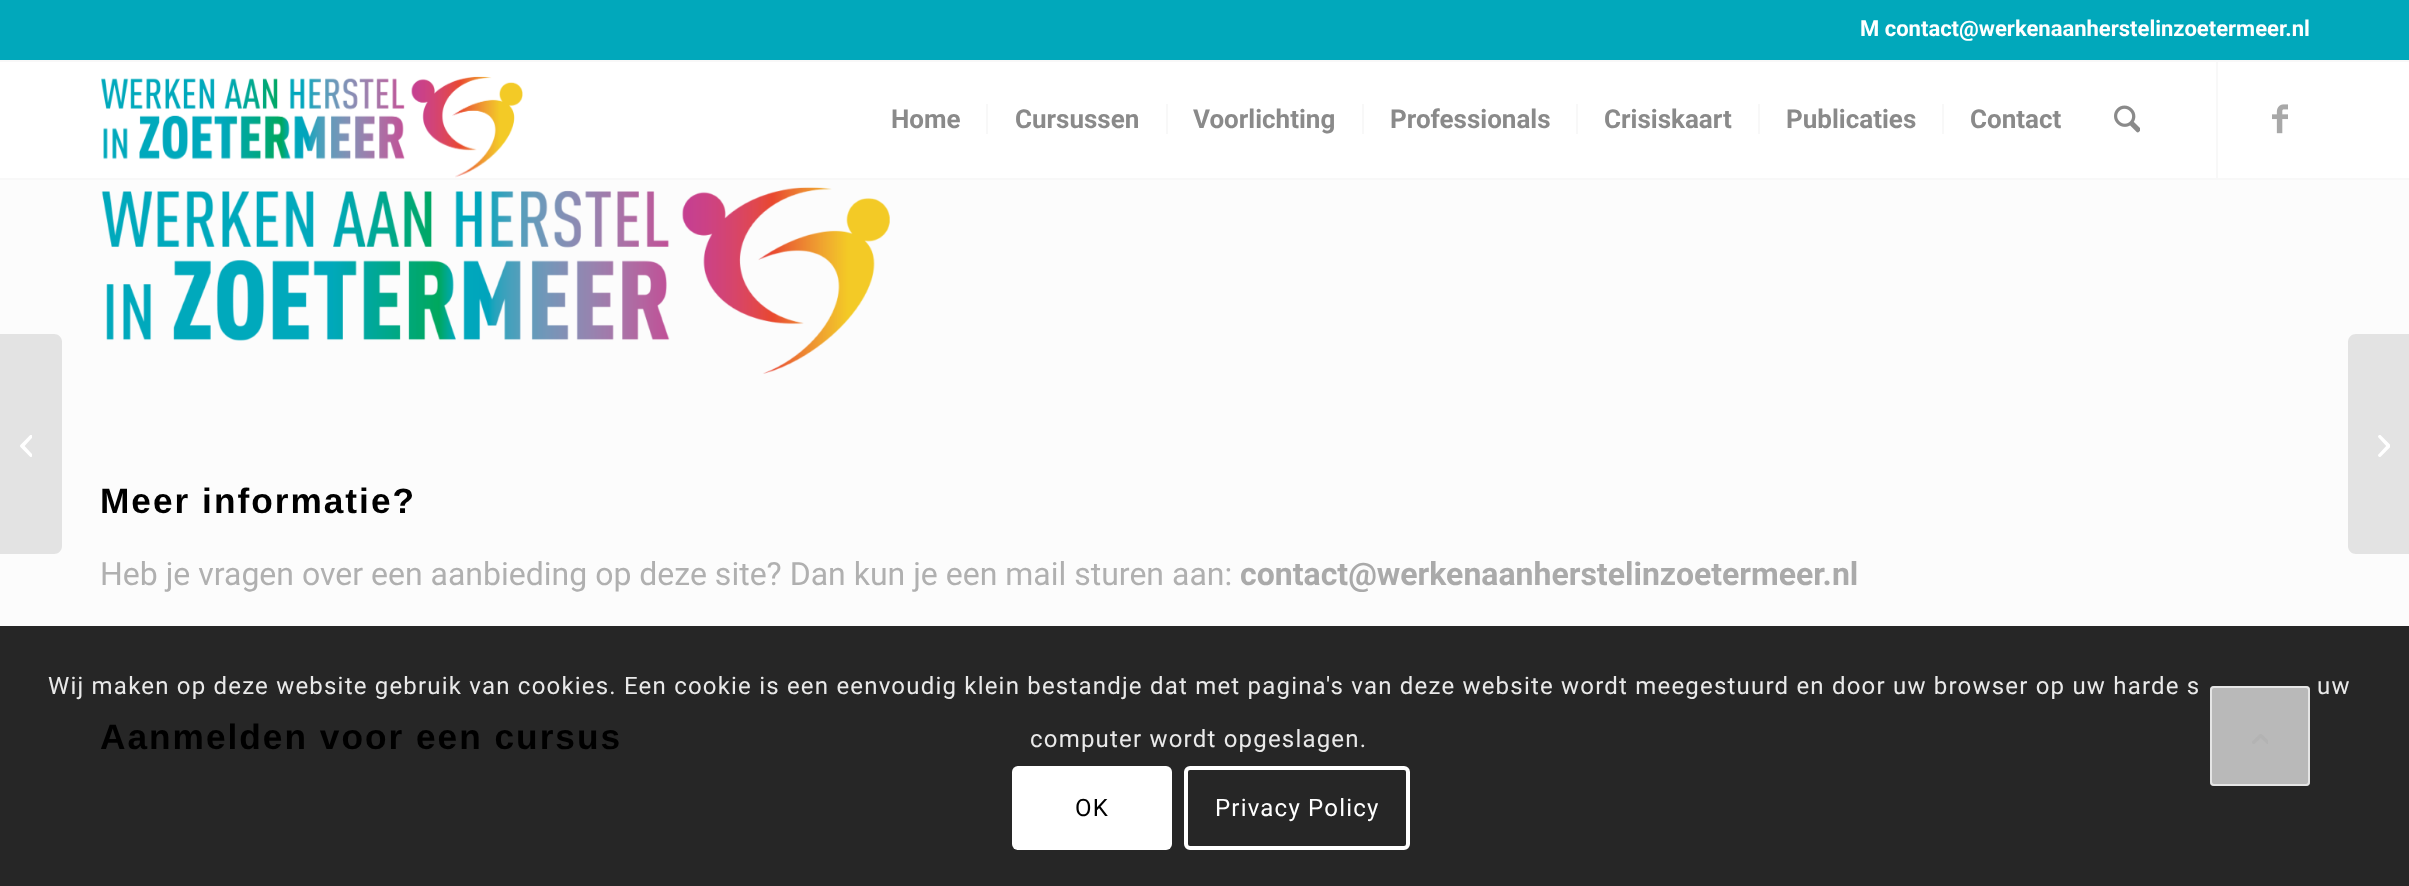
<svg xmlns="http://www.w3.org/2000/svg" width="2409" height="886">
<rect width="100%" height="100%" fill="#fff"/>
<rect width="2409" height="60" fill="#01a8bb"/>
<rect y="60" width="2409" height="2" fill="#f8f8f8"/>
<text x="1860" y="36" style="font-family:Roboto;font-size:22px;font-weight:bold;fill:#fff">M contact@werkenaanherstelinzoetermeer.nl</text>
<rect y="178" width="2409" height="2" fill="#f8f8f8"/>
<image x="101" y="76" width="422" height="102" href="media/1.png"/>
<rect x="2216" y="62" width="2" height="116" fill="#f8f8f8"/>
<text x="891" y="128" style="font-family:Roboto;font-size:26px;font-weight:bold;fill:#8a8a8a">Home</text>
<text x="1015" y="128" style="font-family:Roboto;font-size:26px;font-weight:bold;fill:#8a8a8a">Cursussen</text>
<rect x="986" y="104" width="2" height="30" fill="#f8f8f8"/>
<text x="1193" y="128" style="font-family:Roboto;font-size:26px;font-weight:bold;fill:#8a8a8a">Voorlichting</text>
<rect x="1166" y="104" width="2" height="30" fill="#f8f8f8"/>
<text x="1390" y="128" style="font-family:Roboto;font-size:26px;font-weight:bold;fill:#8a8a8a">Professionals</text>
<rect x="1362" y="104" width="2" height="30" fill="#f8f8f8"/>
<text x="1604" y="128" style="font-family:Roboto;font-size:26px;font-weight:bold;fill:#8a8a8a">Crisiskaart</text>
<rect x="1576" y="104" width="2" height="30" fill="#f8f8f8"/>
<text x="1786" y="128" style="font-family:Roboto;font-size:26px;font-weight:bold;fill:#8a8a8a">Publicaties</text>
<rect x="1758" y="104" width="2" height="30" fill="#f8f8f8"/>
<text x="1970" y="128" style="font-family:Roboto;font-size:26px;font-weight:bold;fill:#8a8a8a">Contact</text>
<rect x="1942" y="104" width="2" height="30" fill="#f8f8f8"/>
<image x="2114" y="105" width="26" height="28" href="media/2.png"/>
<image x="2272" y="104" width="16" height="30" href="media/3.png"/>
<rect y="180" width="2409" height="446" fill="#fcfcfc"/>
<path d="M0 334h54c4.5 0 8 3.5 8 8v204c0 4.5-3.5 8-8 8h-54z" fill="#e3e3e3"/>
<image x="20" y="435" width="12" height="22" href="media/4.png"/>
<path d="M2356 334h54v220h-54c-4.5 0-8-3.5-8-8v-204c0-4.5 3.5-8 8-8z" fill="#e3e3e3"/>
<image x="2378" y="435" width="12" height="22" href="media/5.png"/>
<rect y="626" width="2409" height="260" fill="#262626"/>
<image x="101" y="187" width="789" height="187" href="media/6.png"/>
<text x="100" y="513" style="font-family:Liberation Sans;font-size:35.25px;font-weight:bold;letter-spacing:2px;fill:#000">Meer informatie?</text>
<text x="100" y="585" style="font-family:Roboto;font-size:32px;fill:#b0b0b0">Heb je vragen over een aanbieding op deze site? Dan kun je een mail sturen aan:</text>
<text x="1240" y="585" style="font-family:Roboto;font-size:32px;font-weight:bold;fill:#aaa">contact@werkenaanherstelinzoetermeer.nl</text>
<text x="100" y="749" style="font-family:Liberation Sans;font-size:35.25px;font-weight:bold;letter-spacing:2px;fill:#000">Aanmelden voor een cursus</text>
<text x="48" y="694" style="font-family:Roboto;font-size:24px;letter-spacing:1.2px;fill:#e9e9e9">Wij maken op deze website gebruik van cookies. Een cookie is een eenvoudig klein bestandje dat met pagina's van deze website wordt meegestuurd en door uw browser op uw harde s</text>
<text x="2317" y="694" style="font-family:Roboto;font-size:24px;letter-spacing:1.2px;fill:#e9e9e9">uw</text>
<text x="1030" y="747" style="font-family:Roboto;font-size:24px;letter-spacing:1.2px;fill:#e9e9e9">computer wordt opgeslagen.</text>
<rect x="1012" y="766" width="160" height="84" rx="6" fill="#fff"/>
<text x="1075" y="816" style="font-family:Roboto;font-size:24px;letter-spacing:1.2px;fill:#000">OK</text>
<rect x="1186" y="768" width="222" height="80" rx="4" fill="none" stroke="#fff" stroke-width="4"/>
<text x="1215" y="816" style="font-family:Roboto;font-size:24px;letter-spacing:1.2px;fill:#fff">Privacy Policy</text>
<rect x="2210" y="686" width="100" height="100" rx="4" fill="#f8f8f8b3"/>
<rect x="2211" y="687" width="98" height="98" rx="3" fill="none" stroke="#f8f8f8b3" stroke-width="2"/>
<image x="2252" y="734" width="16" height="10" href="media/7.png"/>
</svg>
